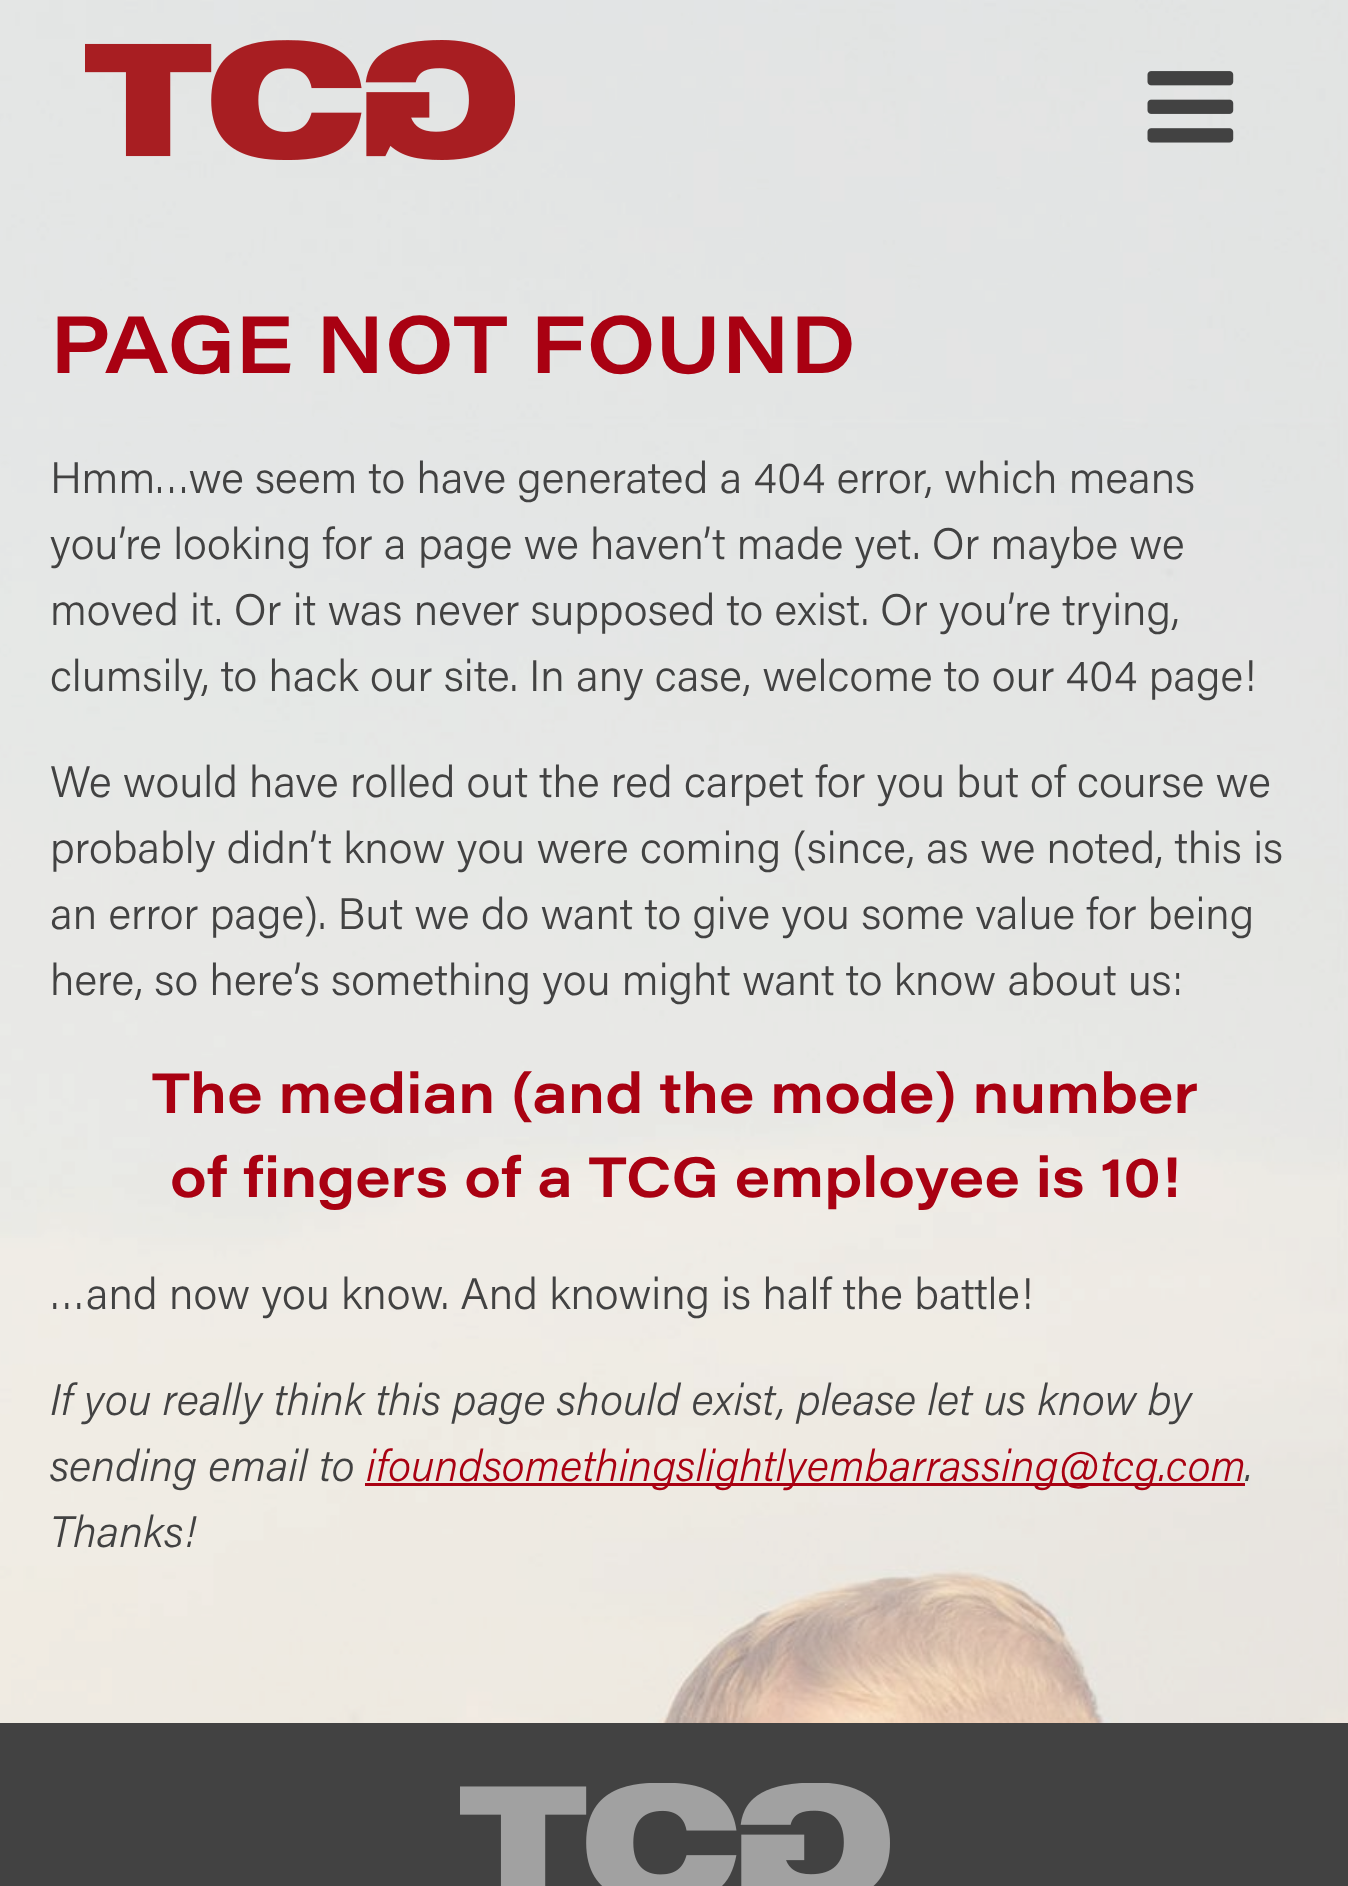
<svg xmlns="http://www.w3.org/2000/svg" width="1348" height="1886">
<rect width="100%" height="100%" fill="#fff"/>
<image x="0" y="0" width="1348" height="1723" href="media/1.png"/>
<image x="85" y="40" width="430" height="120" href="media/2.png"/>
<image x="1147" y="71" width="87" height="72" href="media/3.png"/>
<text x="50" y="373" style="font-family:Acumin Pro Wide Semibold;font-size:80px;font-weight:600;fill:#a90112">PAGE NOT FOUND</text>
<text x="50" y="493" style="font-family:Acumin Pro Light;font-size:44px;font-weight:300;fill:#424242">Hmm…we seem to have generated a 404 error, which means</text>
<text x="50" y="559" style="font-family:Acumin Pro Light;font-size:44px;font-weight:300;fill:#424242">you’re looking for a page we haven’t made yet. Or maybe we</text>
<text x="50" y="625" style="font-family:Acumin Pro Light;font-size:44px;font-weight:300;fill:#424242">moved it. Or it was never supposed to exist. Or you’re trying,</text>
<text x="50" y="691" style="font-family:Acumin Pro Light;font-size:44px;font-weight:300;fill:#424242">clumsily, to hack our site. In any case, welcome to our 404 page!</text>
<text x="50" y="797" style="font-family:Acumin Pro Light;font-size:44px;font-weight:300;fill:#424242">We would have rolled out the red carpet for you but of course we</text>
<text x="50" y="863" style="font-family:Acumin Pro Light;font-size:44px;font-weight:300;fill:#424242">probably didn’t know you were coming (since, as we noted, this is</text>
<text x="50" y="929" style="font-family:Acumin Pro Light;font-size:44px;font-weight:300;fill:#424242">an error page). But we do want to give you some value for being</text>
<text x="50" y="995" style="font-family:Acumin Pro Light;font-size:44px;font-weight:300;fill:#424242">here, so here’s something you might want to know about us:</text>
<text x="152" y="1113" style="font-family:Acumin Pro Wide Semibold;font-size:56px;font-weight:600;fill:#a90112">The median (and the mode) number</text>
<text x="170" y="1197" style="font-family:Acumin Pro Wide Semibold;font-size:56px;font-weight:600;fill:#a90112">of fingers of a TCG employee is 10!</text>
<text x="50" y="1309" style="font-family:Acumin Pro Light;font-size:44px;font-weight:300;fill:#424242">…and now you know. And knowing is half the battle!</text>
<text x="50" y="1415" style="font-family:Acumin Pro Light;font-size:44px;font-weight:300;font-style:italic;fill:#424242">If you really think this page should exist, please let us know by</text>
<text x="50" y="1481" style="font-family:Acumin Pro Light;font-size:44px;font-weight:300;font-style:italic;fill:#424242">sending email to</text>
<rect x="365" y="1483" width="880" height="3" fill="#a90112"/>
<text x="366" y="1481" style="font-family:Acumin Pro Light;font-size:44px;font-weight:300;font-style:italic;fill:#a90112">ifoundsomethingslightlyembarrassing@tcg.com</text>
<text x="1245" y="1481" style="font-family:Acumin Pro Light;font-size:44px;font-weight:300;font-style:italic;fill:#424242">.</text>
<text x="50" y="1547" style="font-family:Acumin Pro Light;font-size:44px;font-weight:300;font-style:italic;fill:#424242">Thanks!</text>
<rect y="1723" width="1348" height="163" fill="#424242"/>
<image x="460" y="1783" width="430" height="103" href="media/4.png"/>
</svg>
